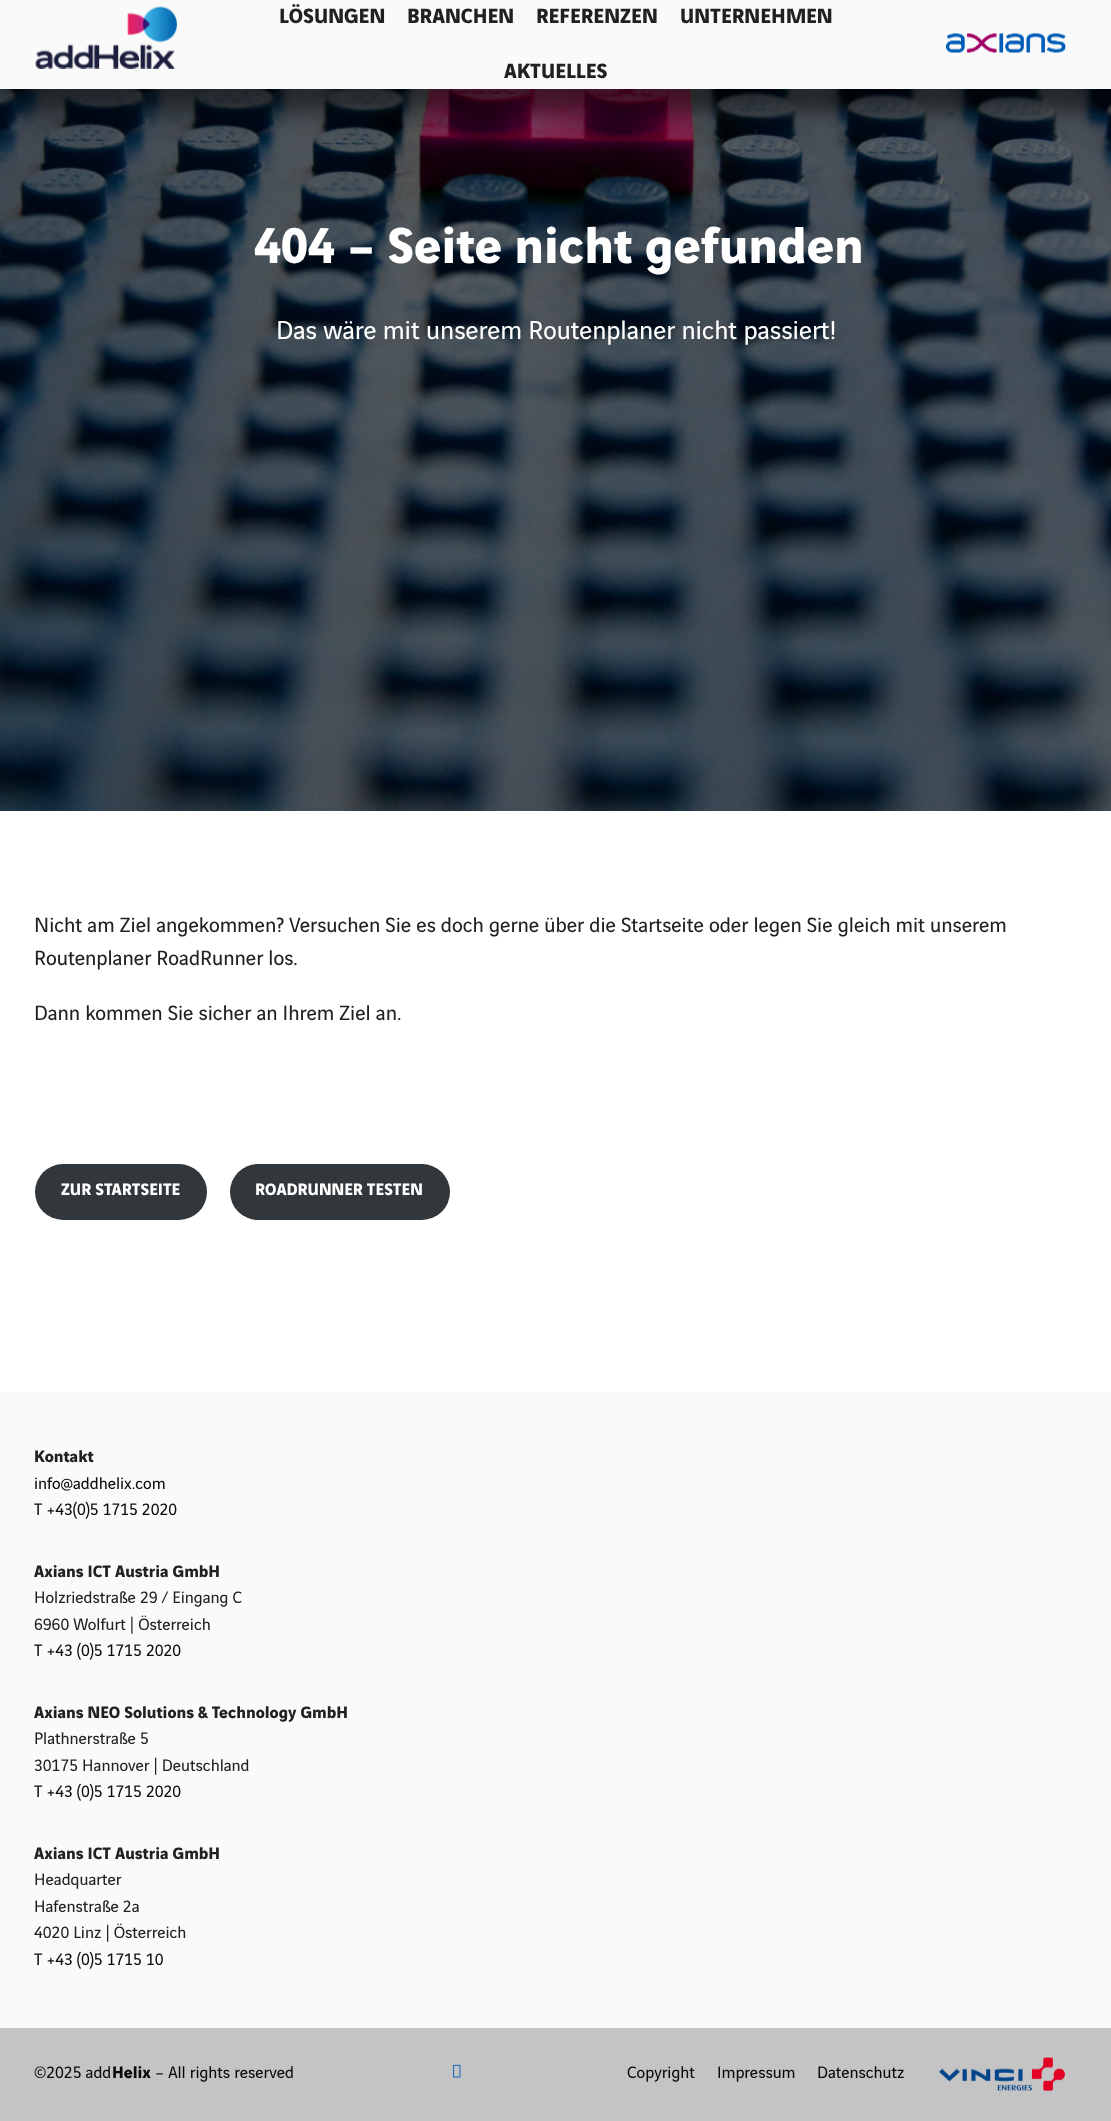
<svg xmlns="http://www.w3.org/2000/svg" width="1111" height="2121">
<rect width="100%" height="100%" fill="#fff"/>
<image x="0" y="89" width="1111" height="722" href="media/3.png"/>
<rect y="24" width="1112" height="89" fill="#00000080" filter="blur(12px)"/>
<rect width="1111" height="89" fill="#fafafa"/>
<image x="35" y="6" width="142" height="63" href="media/1.png"/>
<text x="279" y="23" style="font-family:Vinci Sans;font-size:22.05px;font-weight:bold;fill:#212121">LÖSUNGEN</text>
<text x="407" y="23" style="font-family:Vinci Sans;font-size:22.05px;font-weight:bold;fill:#212121">BRANCHEN</text>
<text x="536" y="23" style="font-family:Vinci Sans;font-size:22.05px;font-weight:bold;fill:#212121">REFERENZEN</text>
<text x="680" y="23" style="font-family:Vinci Sans;font-size:22.05px;font-weight:bold;fill:#212121">UNTERNEHMEN</text>
<text x="504" y="78" style="font-family:Vinci Sans;font-size:22.05px;font-weight:bold;fill:#212121">AKTUELLES</text>
<image x="945" y="32" width="121" height="21" href="media/2.png"/>
<text x="254" y="263" style="font-family:Vinci Sans;font-size:53.75px;font-weight:bold;fill:#fff">404 – Seite nicht gefunden</text>
<text x="276" y="339" style="font-family:Vinci Sans;font-size:27.6px;fill:#fff">Das wäre mit unserem Routenplaner nicht passiert!</text>
<text x="34" y="932" style="font-family:Vinci Sans;font-size:22.05px;fill:#212121">Nicht am Ziel angekommen? Versuchen Sie es doch gerne über die Startseite oder legen Sie gleich mit unserem</text>
<text x="34" y="965" style="font-family:Vinci Sans;font-size:22.05px;fill:#212121">Routenplaner RoadRunner los.</text>
<text x="34" y="1020" style="font-family:Vinci Sans;font-size:22.05px;fill:#212121">Dann kommen Sie sicher an Ihrem Ziel an.</text>
<rect x="35" y="1164" width="172" height="56" rx="28" fill="#32373c"/>
<text x="61" y="1195" style="font-family:Vinci Sans;font-size:17.6px;font-weight:bold;fill:#fff">ZUR STARTSEITE</text>
<rect x="230" y="1164" width="220" height="56" rx="28" fill="#32373c"/>
<text x="255" y="1195" style="font-family:Vinci Sans;font-size:17.6px;font-weight:bold;fill:#fff">ROADRUNNER TESTEN</text>
<rect y="1392" width="1111" height="636" fill="#fafafa"/>
<text x="34" y="1462" style="font-family:Vinci Sans;font-size:17.6px;font-weight:bold;fill:#212121">Kontakt</text>
<text x="34" y="1489" style="font-family:Vinci Sans;font-size:17.6px;fill:#0a0a0a">info@addhelix.com</text>
<text x="34" y="1515" style="font-family:Vinci Sans;font-size:17.6px;fill:#0a0a0a">T +43(0)5 1715 2020</text>
<text x="34" y="1577" style="font-family:Vinci Sans;font-size:17.6px;font-weight:bold;fill:#212121">Axians ICT Austria GmbH</text>
<text x="34" y="1603" style="font-family:Vinci Sans;font-size:17.6px;fill:#212121">Holzriedstraße 29 / Eingang C</text>
<text x="34" y="1630" style="font-family:Vinci Sans;font-size:17.6px;fill:#212121">6960 Wolfurt | Österreich</text>
<text x="34" y="1656" style="font-family:Vinci Sans;font-size:17.6px;fill:#0a0a0a">T +43 (0)5 1715 2020</text>
<text x="34" y="1718" style="font-family:Vinci Sans;font-size:17.6px;font-weight:bold;fill:#212121">Axians NEO Solutions &amp; Technology GmbH</text>
<text x="34" y="1744" style="font-family:Vinci Sans;font-size:17.6px;fill:#212121">Plathnerstraße 5</text>
<text x="34" y="1771" style="font-family:Vinci Sans;font-size:17.6px;fill:#212121">30175 Hannover | Deutschland</text>
<text x="34" y="1797" style="font-family:Vinci Sans;font-size:17.6px;fill:#0a0a0a">T +43 (0)5 1715 2020</text>
<text x="34" y="1859" style="font-family:Vinci Sans;font-size:17.6px;font-weight:bold;fill:#212121">Axians ICT Austria GmbH</text>
<text x="34" y="1885" style="font-family:Vinci Sans;font-size:17.6px;fill:#212121">Headquarter</text>
<text x="34" y="1912" style="font-family:Vinci Sans;font-size:17.6px;fill:#212121">Hafenstraße 2a</text>
<text x="34" y="1938" style="font-family:Vinci Sans;font-size:17.6px;fill:#212121">4020 Linz | Österreich</text>
<text x="34" y="1965" style="font-family:Vinci Sans;font-size:17.6px;fill:#0a0a0a">T +43 (0)5 1715 10</text>
<rect y="2028" width="1111" height="93" fill="#c4c4c4"/>
<text x="34" y="2078" style="font-family:Vinci Sans;font-size:17.6px;fill:#0a0a0a">©2025 add</text>
<text x="112" y="2078" style="font-family:Vinci Sans;font-size:17.6px;font-weight:bold;fill:#0a0a0a">Helix</text>
<text x="155" y="2078" style="font-family:Vinci Sans;font-size:17.6px;fill:#0a0a0a">– All rights reserved</text>
<image x="453" y="2064" width="8" height="14" href="media/4.png"/>
<text x="627" y="2078" style="font-family:Vinci Sans;font-size:17.6px;fill:#0a0a0a">Copyright</text>
<text x="717" y="2078" style="font-family:Vinci Sans;font-size:17.6px;fill:#0a0a0a">Impressum</text>
<text x="817" y="2078" style="font-family:Vinci Sans;font-size:17.6px;fill:#0a0a0a">Datenschutz</text>
<image x="939" y="2057" width="126" height="34" href="media/5.png"/>
</svg>
